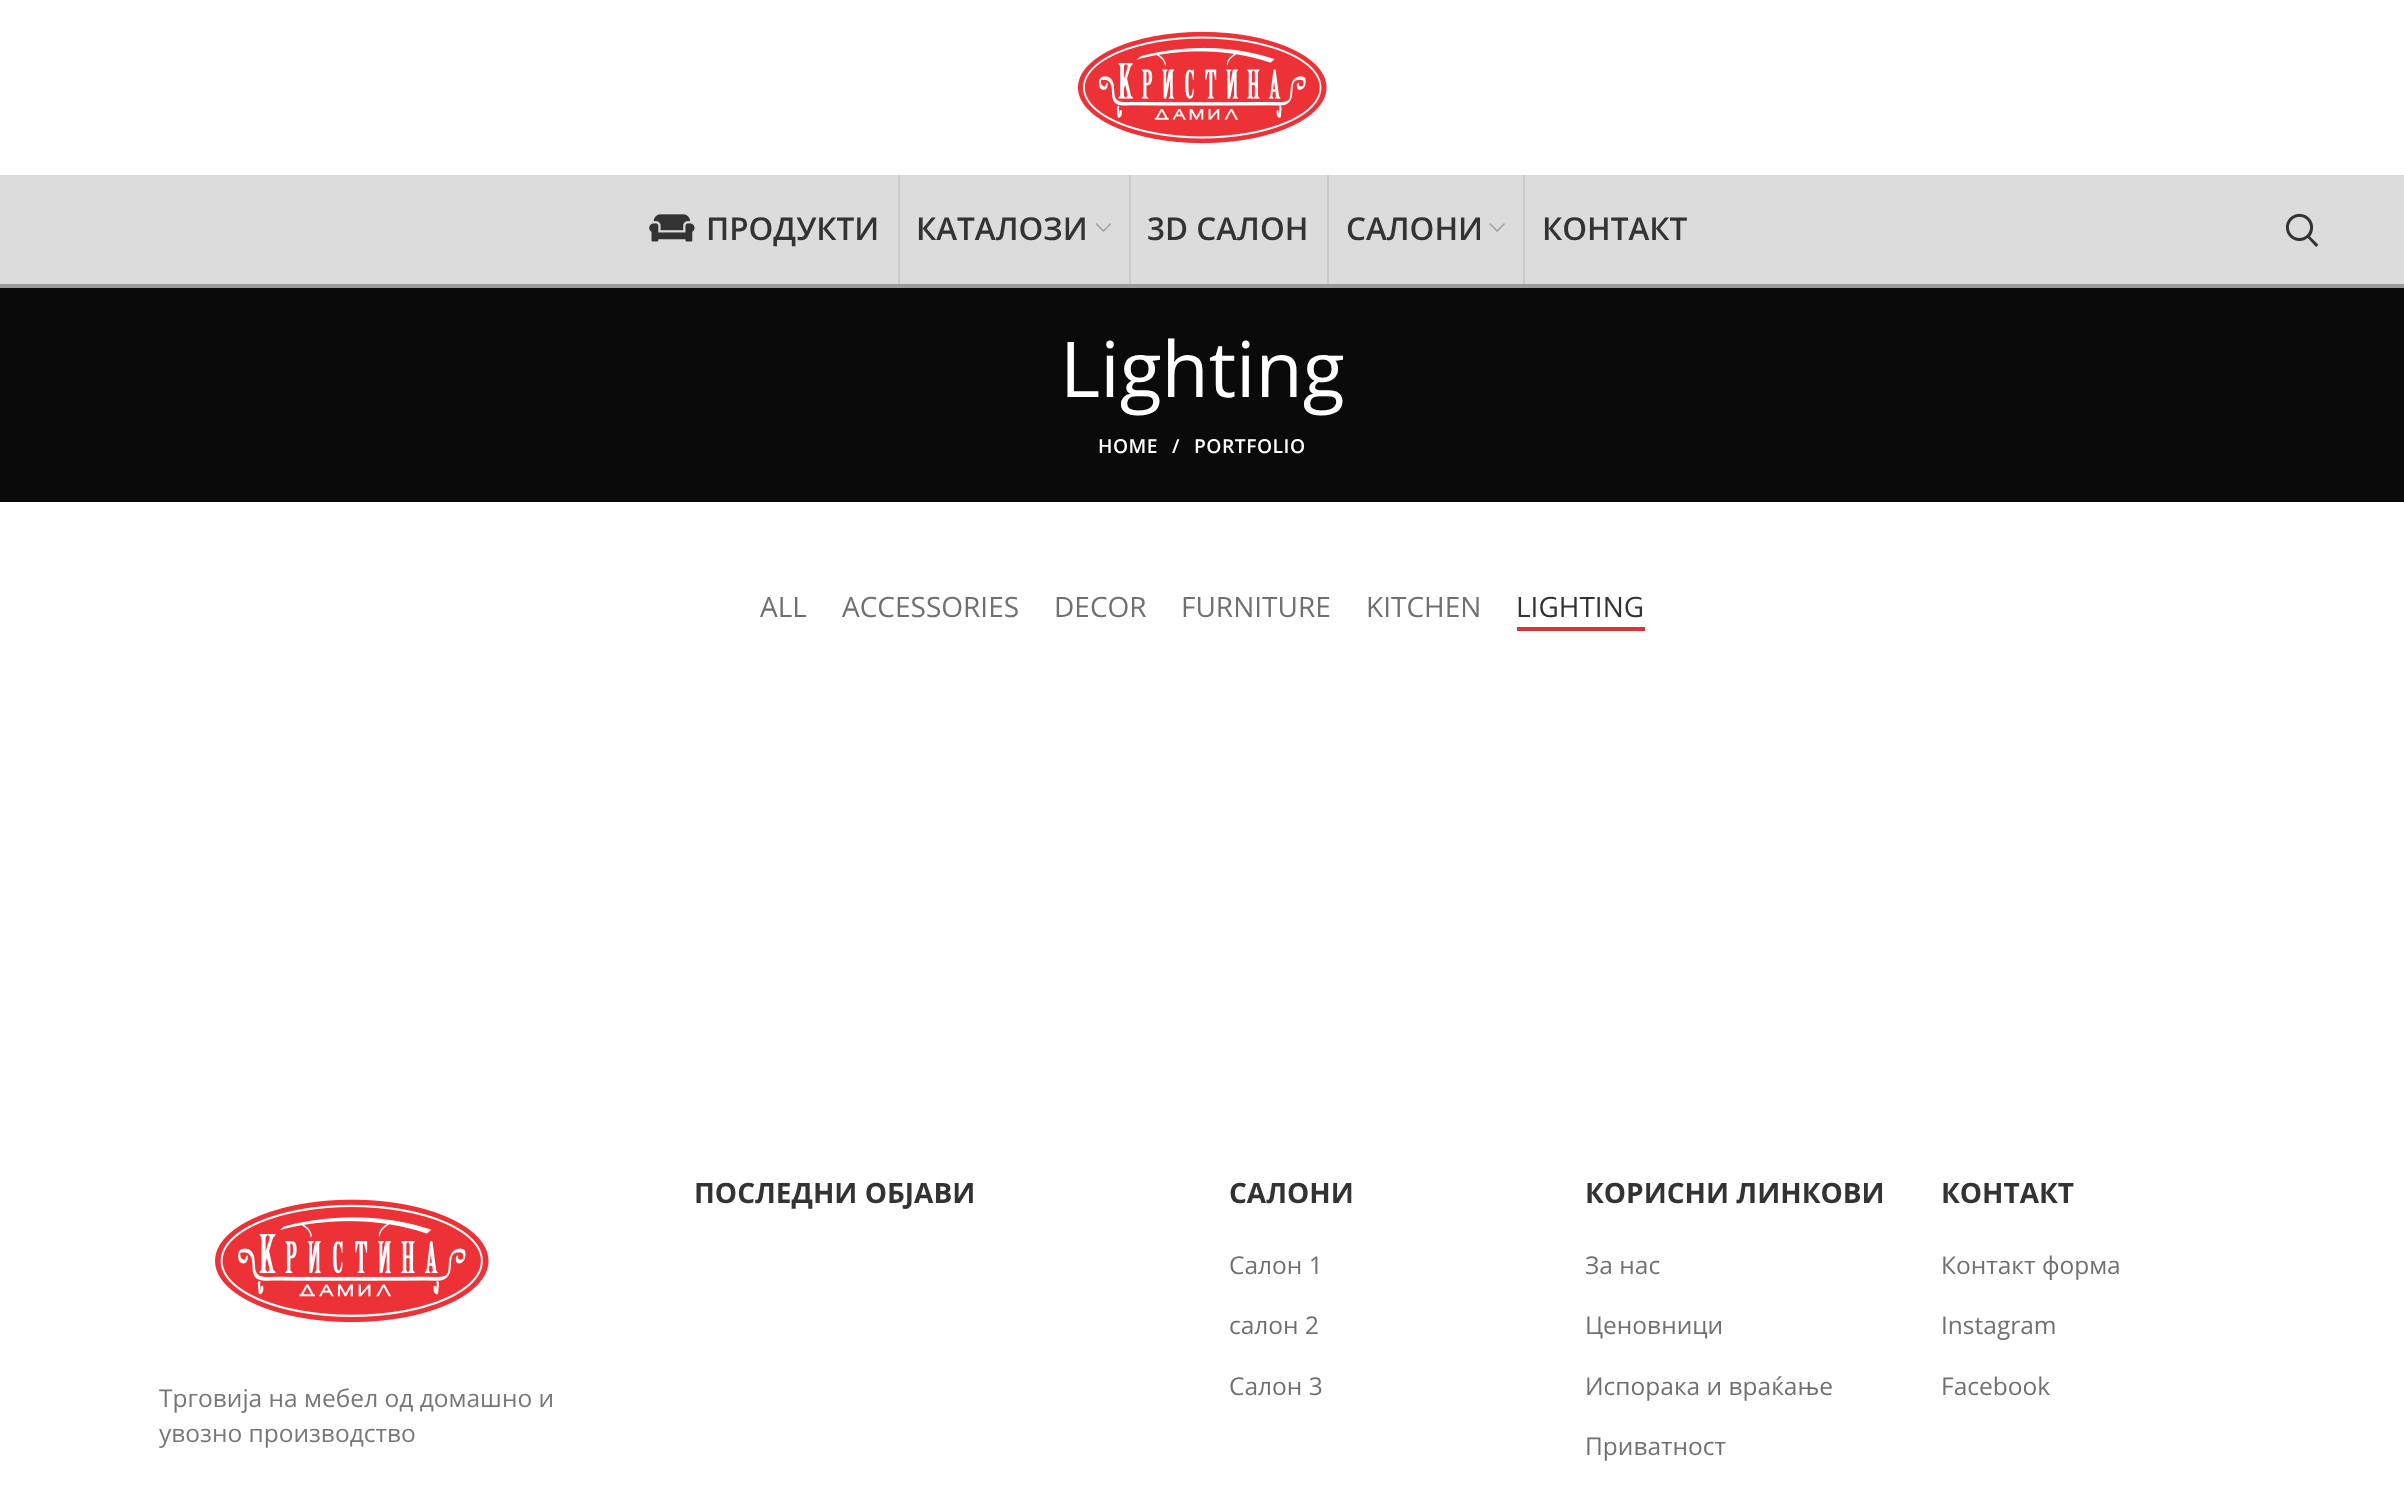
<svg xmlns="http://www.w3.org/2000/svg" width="2404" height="1492">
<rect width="100%" height="100%" fill="#fff"/>
<image x="1077" y="31" width="250" height="113" href="media/1.png"/>
<rect y="175" width="2404" height="109" fill="#dcdcdc"/>
<rect y="284" width="2404" height="4" fill="#9b9b9b"/>
<image x="649" y="214" width="46" height="28" href="media/2.png"/>
<text x="706" y="240" style="font-family:Open Sans;font-size:31.5px;font-weight:600;fill:#333">ПРОДУКТИ</text>
<rect x="898" y="175" width="2" height="109" fill="#cacaca"/>
<text x="916" y="240" style="font-family:Open Sans;font-size:31.5px;font-weight:600;fill:#333">КАТАЛОЗИ</text>
<image x="1095" y="223" width="16" height="9" href="media/3.png"/>
<rect x="1129" y="175" width="2" height="109" fill="#cacaca"/>
<text x="1147" y="240" style="font-family:Open Sans;font-size:31.5px;font-weight:600;fill:#333">3D САЛОН</text>
<rect x="1327" y="175" width="2" height="109" fill="#cacaca"/>
<text x="1346" y="240" style="font-family:Open Sans;font-size:31.5px;font-weight:600;fill:#333">САЛОНИ</text>
<image x="1489" y="223" width="16" height="9" href="media/4.png"/>
<rect x="1523" y="175" width="2" height="109" fill="#cacaca"/>
<text x="1542" y="240" style="font-family:Open Sans;font-size:31.5px;font-weight:600;fill:#333">КОНТАКТ</text>
<image x="2285" y="213" width="34" height="34" href="media/5.png"/>
<rect y="288" width="2404" height="214" fill="#0a0a0a"/>
<text x="1060" y="397" style="font-family:Open Sans;font-size:77px;fill:#fff">Lighting</text>
<text x="1098" y="453" style="font-family:Open Sans;font-size:19.25px;font-weight:600;letter-spacing:0.5px;fill:#fff">HOME</text>
<text x="1172" y="453" style="font-family:Open Sans;font-size:19.25px;font-weight:600;letter-spacing:0.5px;fill:#fff">/</text>
<text x="1194" y="453" style="font-family:Open Sans;font-size:19.25px;font-weight:600;letter-spacing:0.5px;fill:#fff">PORTFOLIO</text>
<text x="760" y="617" style="font-family:Open Sans;font-size:28px;fill:#707070">ALL</text>
<text x="842" y="617" style="font-family:Open Sans;font-size:28px;fill:#707070">ACCESSORIES</text>
<text x="1054" y="617" style="font-family:Open Sans;font-size:28px;fill:#707070">DECOR</text>
<text x="1181" y="617" style="font-family:Open Sans;font-size:28px;fill:#707070">FURNITURE</text>
<text x="1366" y="617" style="font-family:Open Sans;font-size:28px;fill:#707070">KITCHEN</text>
<text x="1516" y="617" style="font-family:Open Sans;font-size:28px;fill:#333">LIGHTING</text>
<rect x="1517" y="627" width="128" height="4" fill="#d33"/>
<text x="694" y="1203" style="font-family:Open Sans;font-size:28px;font-weight:bold;fill:#333">ПОСЛЕДНИ ОБЈАВИ</text>
<text x="1229" y="1203" style="font-family:Open Sans;font-size:28px;font-weight:bold;fill:#333">САЛОНИ</text>
<text x="1229" y="1274" style="font-family:Open Sans;font-size:24.5px;fill:#707070">Салон 1</text>
<text x="1229" y="1334" style="font-family:Open Sans;font-size:24.5px;fill:#707070">салон 2</text>
<text x="1229" y="1395" style="font-family:Open Sans;font-size:24.5px;fill:#707070">Салон 3</text>
<text x="1585" y="1203" style="font-family:Open Sans;font-size:28px;font-weight:bold;fill:#333">КОРИСНИ ЛИНКОВИ</text>
<text x="1585" y="1274" style="font-family:Open Sans;font-size:24.5px;fill:#707070">За нас</text>
<text x="1585" y="1334" style="font-family:Open Sans;font-size:24.5px;fill:#707070">Ценовници</text>
<text x="1585" y="1395" style="font-family:Open Sans;font-size:24.5px;fill:#707070">Испорака и враќање</text>
<text x="1585" y="1455" style="font-family:Open Sans;font-size:24.5px;fill:#707070">Приватност</text>
<text x="1941" y="1203" style="font-family:Open Sans;font-size:28px;font-weight:bold;fill:#333">КОНТАКТ</text>
<text x="1941" y="1274" style="font-family:Open Sans;font-size:24.5px;fill:#707070">Контакт форма</text>
<text x="1941" y="1334" style="font-family:Open Sans;font-size:24.5px;fill:#707070">Instagram</text>
<text x="1941" y="1395" style="font-family:Open Sans;font-size:24.5px;fill:#707070">Facebook</text>
<image x="215" y="1199" width="274" height="124" href="media/6.png"/>
<text x="159" y="1407" style="font-family:Open Sans;font-size:24.5px;fill:#777">Трговија на мебел од домашно и</text>
<text x="159" y="1442" style="font-family:Open Sans;font-size:24.5px;fill:#777">увозно производство</text>
</svg>
